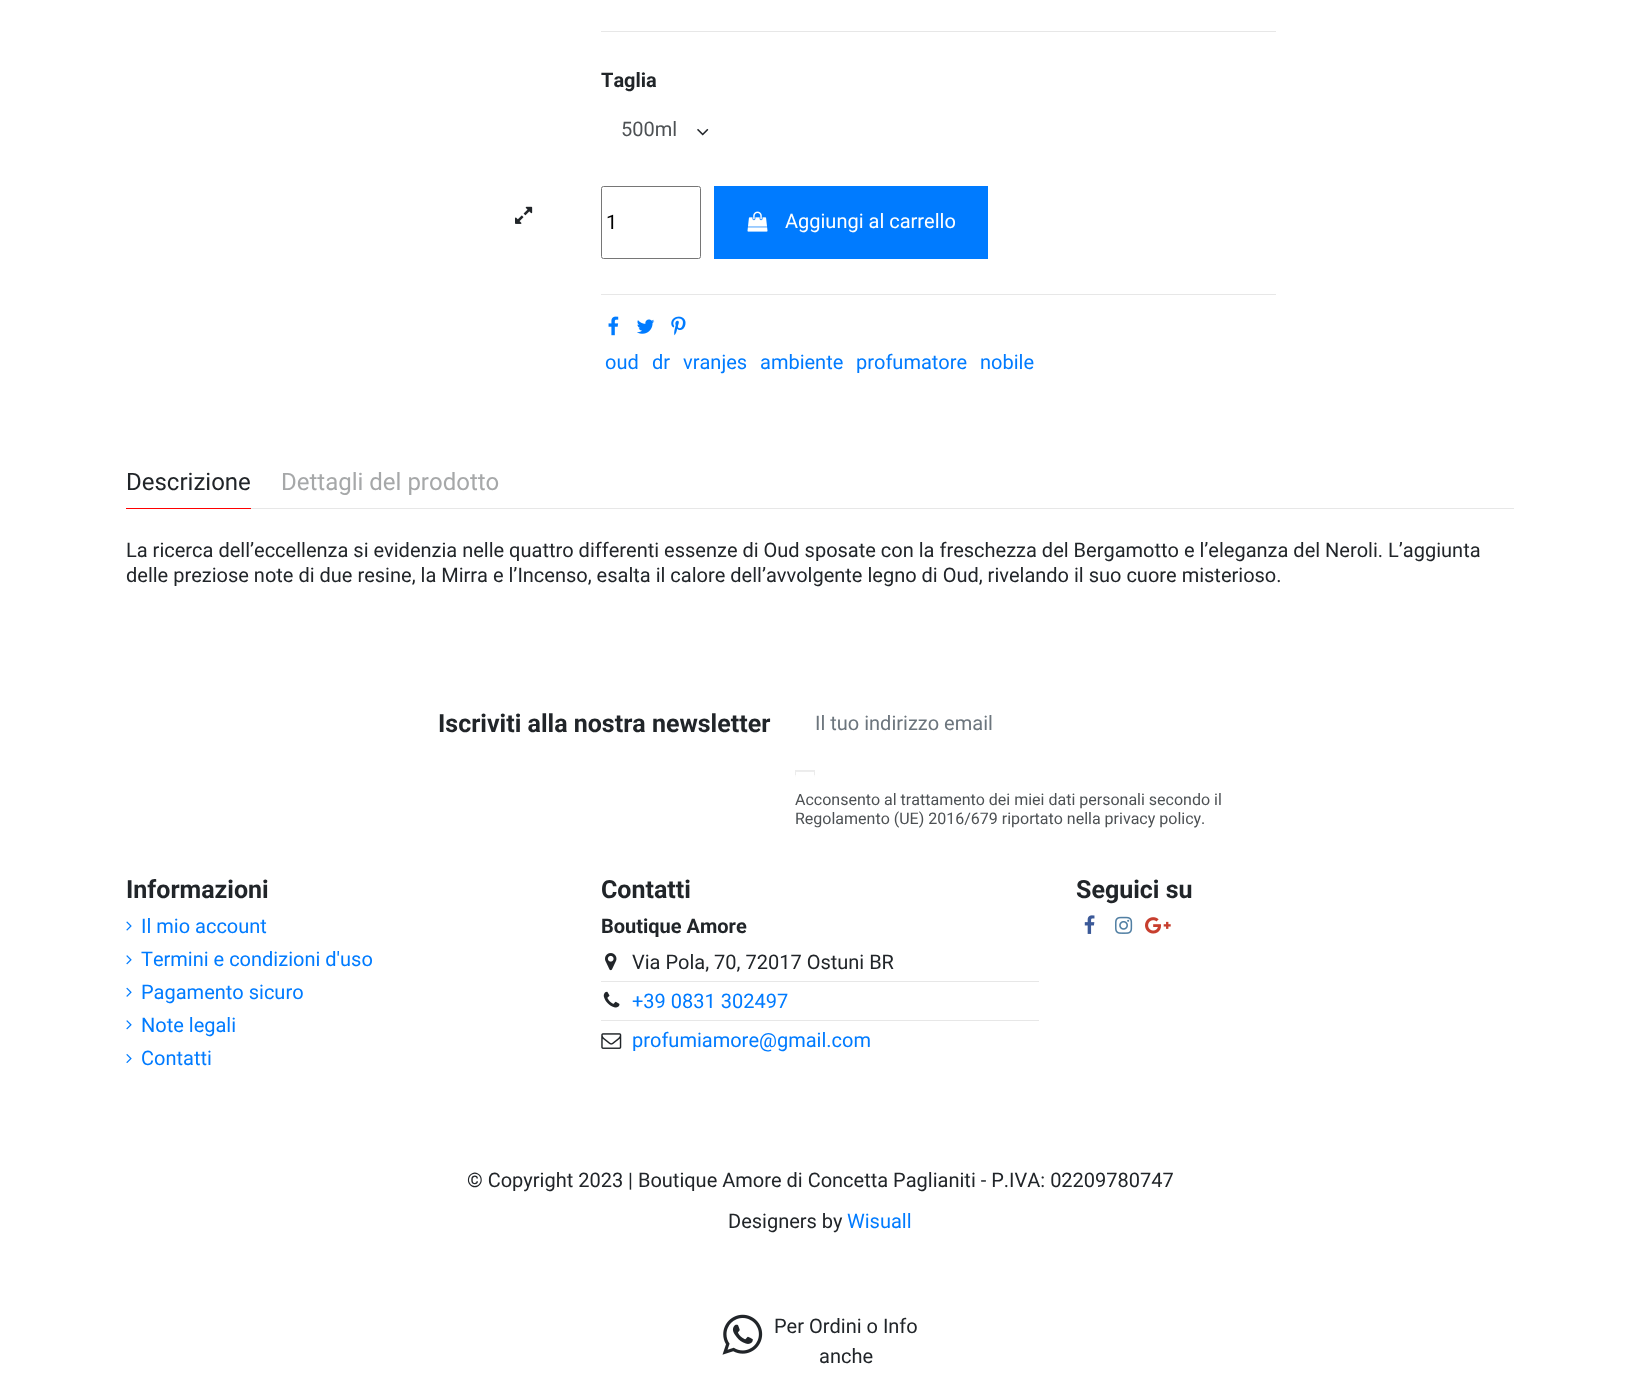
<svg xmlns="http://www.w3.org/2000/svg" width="1639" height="1381">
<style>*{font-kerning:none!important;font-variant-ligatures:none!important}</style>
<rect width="100%" height="100%" fill="#fff"/>
<image x="515" y="206" width="18" height="18" href="media/1.png"/>
<rect x="601" y="31" width="675" height="1" fill="#e7e7e7"/>
<text x="601" y="87" style="font-family:Roboto;font-size:20px;font-weight:bold;fill:#212529">Taglia</text>
<text x="621" y="136" style="font-family:Roboto;font-size:20px;fill:#4d5154">500ml</text>
<image x="697" y="128" width="12" height="8" href="media/2.png"/>
<rect x="601.5" y="186.5" width="99" height="72" rx="2" fill="none" stroke="#767676"/>
<text x="606" y="229" style="font-family:Roboto;font-size:20px;fill:#000">1</text>
<rect x="714" y="186" width="274" height="73" fill="#007bff"/>
<image x="747" y="211" width="21" height="21" href="media/3.png"/>
<text x="785" y="228" style="font-family:Roboto;font-size:20px;fill:#fff">Aggiungi al carrello</text>
<rect x="601" y="294" width="675" height="1" fill="#e7e7e7"/>
<image x="608" y="316" width="11" height="20" href="media/4.png"/>
<image x="637" y="319" width="18" height="15" href="media/5.png"/>
<image x="671" y="316" width="15" height="20" href="media/6.png"/>
<text x="605" y="369" style="font-family:Roboto;font-size:20px;fill:#007bff">oud</text>
<text x="652" y="369" style="font-family:Roboto;font-size:20px;fill:#007bff">dr</text>
<text x="683" y="369" style="font-family:Roboto;font-size:20px;fill:#007bff">vranjes</text>
<text x="760" y="369" style="font-family:Roboto;font-size:20px;fill:#007bff">ambiente</text>
<text x="856" y="369" style="font-family:Roboto;font-size:20px;fill:#007bff">profumatore</text>
<text x="980" y="369" style="font-family:Roboto;font-size:20px;fill:#007bff">nobile</text>
<rect x="251" y="508" width="1263" height="1" fill="#e7e7e7"/>
<rect x="126" y="508" width="125" height="1" fill="#f00"/>
<text x="126" y="490" style="font-family:Roboto;font-size:24px;fill:#212529">Descrizione</text>
<text x="281" y="490" style="font-family:Roboto;font-size:24px;fill:#a6a8a9">Dettagli del prodotto</text>
<text x="126" y="557" style="font-family:Roboto;font-size:20px;fill:#212529">La ricerca dell’eccellenza si evidenzia nelle quattro differenti essenze di Oud sposate con la freschezza del Bergamotto e l’eleganza del Neroli. L’aggiunta</text>
<text x="126" y="582" style="font-family:Roboto;font-size:20px;fill:#212529">delle preziose note di due resine, la Mirra e l’Incenso, esalta il calore dell’avvolgente legno di Oud, rivelando il suo cuore misterioso.</text>
<text x="438" y="732" style="font-family:Roboto;font-size:25px;font-weight:bold;fill:#212529">Iscriviti alla nostra newsletter</text>
<text x="815" y="730" style="font-family:Roboto;font-size:20px;fill:#6c757d">Il tuo indirizzo email</text>
<rect x="796" y="771" width="18" height="1" fill="#ededed"/>
<rect x="795.5" y="770.5" width="19" height="19" fill="none" stroke="#ececec"/>
<text x="795" y="805" style="font-family:Roboto;font-size:16px;fill:#4d5154">Acconsento al trattamento dei miei dati personali secondo il</text>
<rect x="795.5" y="774.5" width="19" height="19" rx="2" fill="#fff" stroke="#fff"/>
<text x="795" y="824" style="font-family:Roboto;font-size:16px;fill:#4d5154">Regolamento (UE) 2016/679 riportato nella privacy policy.</text>
<text x="126" y="898" style="font-family:Roboto;font-size:25px;font-weight:bold;fill:#212529">Informazioni</text>
<image x="126" y="921" width="6" height="10" href="media/7.png"/>
<text x="141" y="933" style="font-family:Roboto;font-size:20px;fill:#007bff">Il mio account</text>
<image x="126" y="955" width="6" height="10" href="media/8.png"/>
<text x="141" y="966" style="font-family:Roboto;font-size:20px;fill:#007bff">Termini e condizioni d'uso</text>
<image x="126" y="987" width="6" height="10" href="media/9.png"/>
<text x="141" y="999" style="font-family:Roboto;font-size:20px;fill:#007bff">Pagamento sicuro</text>
<image x="126" y="1020" width="6" height="10" href="media/8.png"/>
<text x="141" y="1032" style="font-family:Roboto;font-size:20px;fill:#007bff">Note legali</text>
<image x="126" y="1054" width="6" height="9" href="media/10.png"/>
<text x="141" y="1065" style="font-family:Roboto;font-size:20px;fill:#007bff">Contatti</text>
<text x="601" y="898" style="font-family:Roboto;font-size:25px;font-weight:bold;fill:#212529">Contatti</text>
<text x="601" y="933" style="font-family:Roboto;font-size:20px;font-weight:bold;fill:#212529">Boutique Amore</text>
<image x="605" y="953" width="12" height="18" href="media/11.png"/>
<text x="632" y="969" style="font-family:Roboto;font-size:20px;fill:#212529">Via Pola, 70, 72017 Ostuni BR</text>
<rect x="601" y="981" width="438" height="1" fill="#e7e7e7"/>
<image x="603" y="991" width="17" height="17" href="media/12.png"/>
<text x="632" y="1008" style="font-family:Roboto;font-size:20px;fill:#007bff">+39 0831 302497</text>
<rect x="601" y="1020" width="438" height="1" fill="#e7e7e7"/>
<image x="601" y="1033" width="21" height="16" href="media/13.png"/>
<text x="632" y="1047" style="font-family:Roboto;font-size:20px;fill:#007bff">profumiamore@gmail.com</text>
<text x="1076" y="898" style="font-family:Roboto;font-size:25px;font-weight:bold;fill:#212529">Seguici su</text>
<image x="1084" y="915" width="11" height="19" href="media/14.png"/>
<image x="1115" y="916" width="18" height="18" href="media/15.png"/>
<image x="1145" y="917" width="26" height="17" href="media/16.png"/>
<text x="467" y="1187" style="font-family:Roboto;font-size:20px;fill:#212529">© Copyright 2023 | Boutique Amore di Concetta Paglianiti - P.IVA: 02209780747</text>
<text x="728" y="1228" style="font-family:Roboto;font-size:20px;fill:#212529">Designers by</text>
<text x="847" y="1228" style="font-family:Roboto;font-size:20px;fill:#007bff">Wisuall</text>
<image x="722" y="1314" width="41" height="41" href="media/17.png"/>
<text x="774" y="1333" style="font-family:Roboto;font-size:20px;fill:#212529">Per Ordini o Info</text>
<text x="819" y="1363" style="font-family:Roboto;font-size:20px;fill:#212529">anche</text>
</svg>
